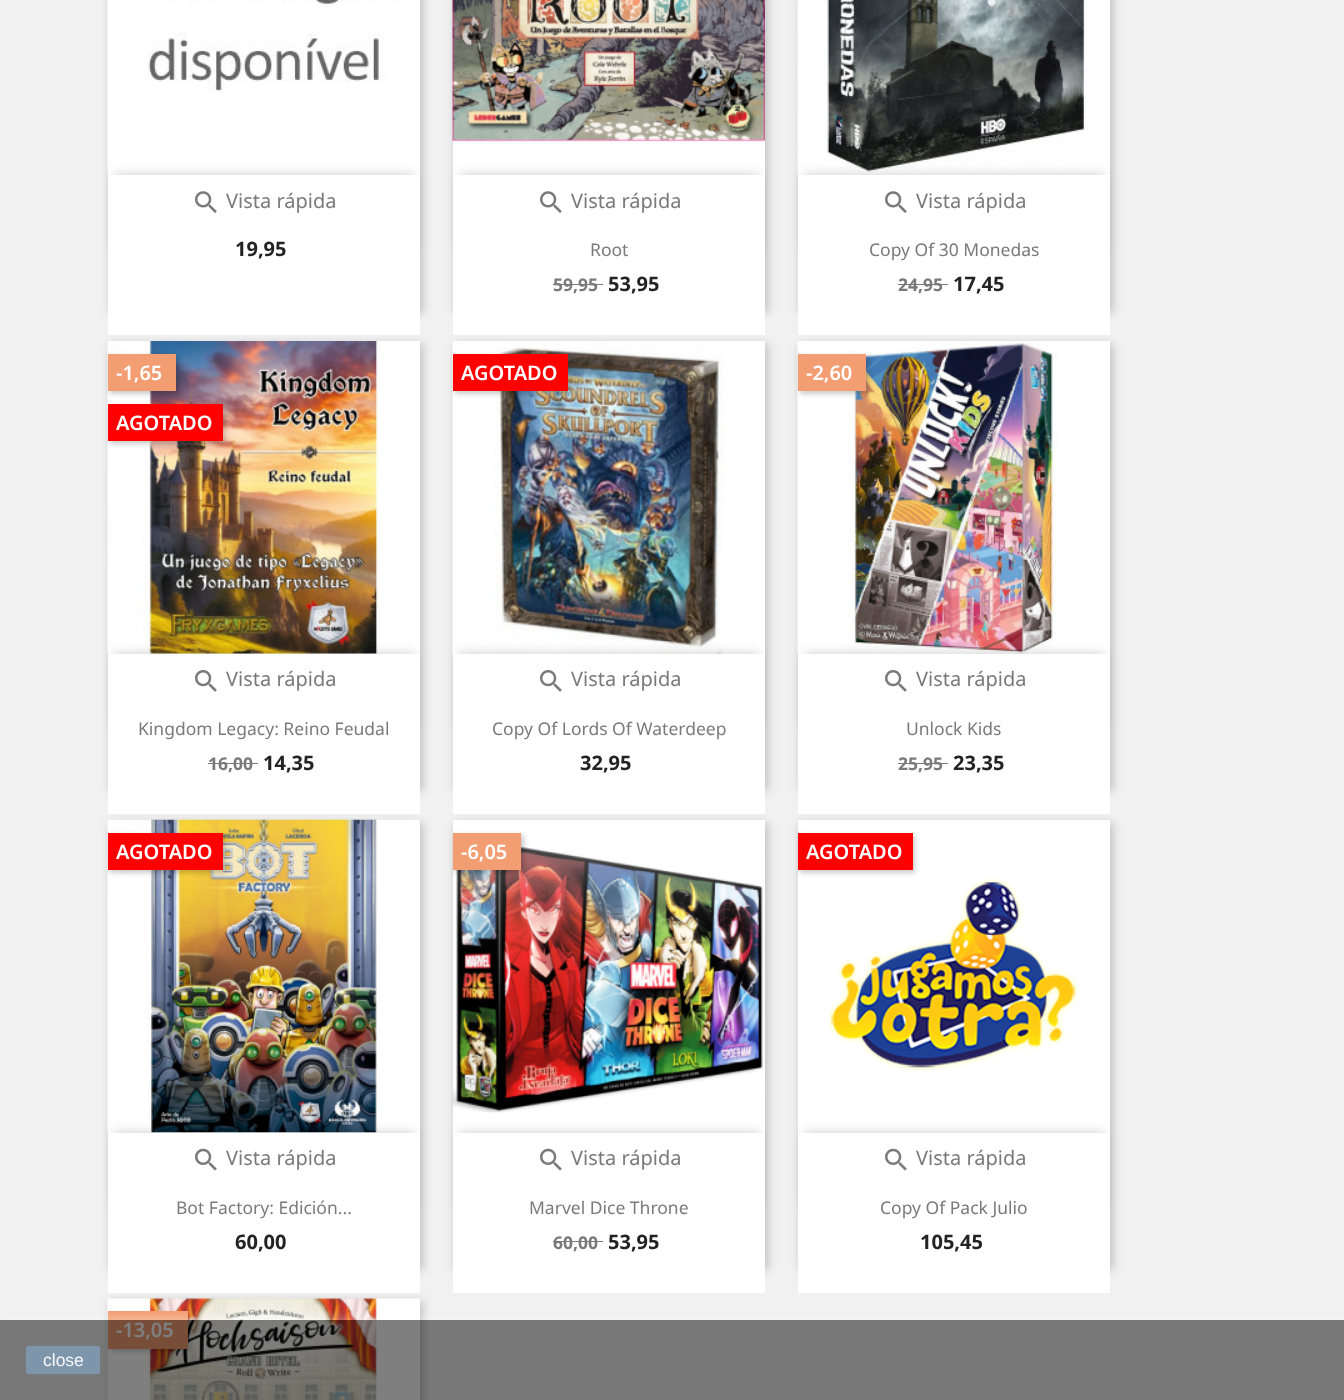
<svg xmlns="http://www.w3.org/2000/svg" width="1344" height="1400">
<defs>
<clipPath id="clip1"><path d="M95 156h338v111h-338zm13 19h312v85h-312z" clip-rule="evenodd"/></clipPath>
<clipPath id="clip2"><path d="M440 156h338v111h-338zm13 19h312v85h-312z" clip-rule="evenodd"/></clipPath>
<clipPath id="clip3"><path d="M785 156h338v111h-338zm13 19h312v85h-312z" clip-rule="evenodd"/></clipPath>
<clipPath id="clip4"><path d="M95 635h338v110h-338zm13 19h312v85h-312z" clip-rule="evenodd"/></clipPath>
<clipPath id="clip5"><path d="M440 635h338v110h-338zm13 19h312v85h-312z" clip-rule="evenodd"/></clipPath>
<clipPath id="clip6"><path d="M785 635h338v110h-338zm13 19h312v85h-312z" clip-rule="evenodd"/></clipPath>
<clipPath id="clip7"><path d="M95 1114h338v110h-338zm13 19h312v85h-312z" clip-rule="evenodd"/></clipPath>
<clipPath id="clip8"><path d="M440 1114h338v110h-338zm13 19h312v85h-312z" clip-rule="evenodd"/></clipPath>
<clipPath id="clip9"><path d="M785 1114h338v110h-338zm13 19h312v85h-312z" clip-rule="evenodd"/></clipPath>
<clipPath id="clip10"><rect x="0" y="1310" width="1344" height="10"/></clipPath>
</defs>
<rect width="100%" height="100%" fill="#f1f1f1"/>
<rect x="110" y="-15" width="313" height="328" fill="#00000033" filter="blur(5px)"/>
<rect x="108" width="312" height="223" fill="#fff"/>
<image x="107" y="0" width="307" height="175" href="media/1.png"/>
<g clip-path="url(#clip1)">
<rect x="114" y="175" width="300" height="73" fill="#00000033" filter="blur(6px)"/>
</g>
<image x="195" y="191" width="22" height="22" href="media/2.png"/>
<text x="226" y="208" style="font-family:Noto Sans;font-size:20px;fill:#7a7a7a">Vista rápida</text>
<rect x="110" y="344" width="313" height="447" fill="#00000033" filter="blur(5px)"/>
<rect x="108" y="223" width="312" height="112" fill="#fff"/>
<text x="235" y="256" style="font-family:Noto Sans;font-size:20px;font-weight:bold;fill:#232323">19,95</text>
<rect x="455" y="-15" width="313" height="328" fill="#00000033" filter="blur(5px)"/>
<rect x="453" y="139" width="312" height="84" fill="#fff"/>
<image x="452" y="0" width="313" height="142" href="media/3.png"/>
<g clip-path="url(#clip2)">
<rect x="459" y="175" width="300" height="73" fill="#00000033" filter="blur(6px)"/>
</g>
<image x="540" y="191" width="22" height="22" href="media/2.png"/>
<text x="571" y="208" style="font-family:Noto Sans;font-size:20px;fill:#7a7a7a">Vista rápida</text>
<rect x="455" y="344" width="313" height="447" fill="#00000033" filter="blur(5px)"/>
<rect x="453" y="223" width="312" height="112" fill="#fff"/>
<text x="590" y="256" style="font-family:Noto Sans;font-size:17.5px;fill:#7a7a7a">Root</text>
<text x="553" y="291" style="font-family:Noto Sans;font-size:17.5px;font-weight:bold;fill:#7a7a7a">59,95</text>
<rect x="553" y="284" width="50" height="1" fill="#7a7a7a"/>
<text x="608" y="291" style="font-family:Noto Sans;font-size:20px;font-weight:bold;fill:#232323">53,95</text>
<rect x="800" y="-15" width="313" height="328" fill="#00000033" filter="blur(5px)"/>
<rect x="798" width="312" height="223" fill="#fff"/>
<image x="797" y="0" width="290" height="175" href="media/4.png"/>
<g clip-path="url(#clip3)">
<rect x="804" y="175" width="300" height="73" fill="#00000033" filter="blur(6px)"/>
</g>
<image x="885" y="191" width="22" height="22" href="media/2.png"/>
<text x="916" y="208" style="font-family:Noto Sans;font-size:20px;fill:#7a7a7a">Vista rápida</text>
<rect x="800" y="344" width="313" height="447" fill="#00000033" filter="blur(5px)"/>
<rect x="798" y="223" width="312" height="112" fill="#fff"/>
<text x="869" y="256" style="font-family:Noto Sans;font-size:17.5px;fill:#7a7a7a">Copy Of 30 Monedas</text>
<text x="898" y="291" style="font-family:Noto Sans;font-size:17.5px;font-weight:bold;fill:#7a7a7a">24,95</text>
<rect x="898" y="284" width="50" height="1" fill="#7a7a7a"/>
<text x="953" y="291" style="font-family:Noto Sans;font-size:20px;font-weight:bold;fill:#232323">17,45</text>
<rect x="108" y="341" width="312" height="360" fill="#fff"/>
<image x="107" y="341" width="274" height="313" href="media/5.png"/>
<rect x="110" y="356" width="69" height="38" fill="#00000033" filter="blur(2.5px)"/>
<rect x="108" y="354" width="68" height="37" fill="#f39d72"/>
<text x="116" y="380" style="font-family:Noto Sans;font-size:20px;font-weight:600;fill:#fff">-1,65</text>
<rect x="110" y="406" width="115" height="38" fill="#00000033" filter="blur(2.5px)"/>
<rect x="108" y="404" width="115" height="37" fill="#f00"/>
<text x="116" y="430" style="font-family:Noto Sans;font-size:20px;font-weight:600;fill:#fff">AGOTADO</text>
<g clip-path="url(#clip4)">
<rect x="114" y="654" width="300" height="72" fill="#00000033" filter="blur(6px)"/>
</g>
<image x="195" y="670" width="22" height="22" href="media/6.png"/>
<text x="226" y="686" style="font-family:Noto Sans;font-size:20px;fill:#7a7a7a">Vista rápida</text>
<rect x="110" y="823" width="313" height="447" fill="#00000033" filter="blur(5px)"/>
<rect x="108" y="701" width="312" height="113" fill="#fff"/>
<text x="138" y="735" style="font-family:Noto Sans;font-size:17.5px;fill:#7a7a7a">Kingdom Legacy: Reino Feudal</text>
<text x="208" y="770" style="font-family:Noto Sans;font-size:17.5px;font-weight:bold;fill:#7a7a7a">16,00</text>
<rect x="208" y="763" width="50" height="1" fill="#7a7a7a"/>
<text x="263" y="770" style="font-family:Noto Sans;font-size:20px;font-weight:bold;fill:#232323">14,35</text>
<rect x="453" y="341" width="312" height="360" fill="#fff"/>
<image x="452" y="341" width="272" height="313" href="media/7.png"/>
<rect x="455" y="356" width="115" height="38" fill="#00000033" filter="blur(2.5px)"/>
<rect x="453" y="354" width="115" height="37" fill="#f00"/>
<text x="461" y="380" style="font-family:Noto Sans;font-size:20px;font-weight:600;fill:#fff">AGOTADO</text>
<g clip-path="url(#clip5)">
<rect x="459" y="654" width="300" height="72" fill="#00000033" filter="blur(6px)"/>
</g>
<image x="540" y="670" width="22" height="22" href="media/6.png"/>
<text x="571" y="686" style="font-family:Noto Sans;font-size:20px;fill:#7a7a7a">Vista rápida</text>
<rect x="455" y="823" width="313" height="447" fill="#00000033" filter="blur(5px)"/>
<rect x="453" y="701" width="312" height="113" fill="#fff"/>
<text x="492" y="735" style="font-family:Noto Sans;font-size:17.5px;fill:#7a7a7a">Copy Of Lords Of Waterdeep</text>
<text x="580" y="770" style="font-family:Noto Sans;font-size:20px;font-weight:bold;fill:#232323">32,95</text>
<rect x="798" y="341" width="312" height="360" fill="#fff"/>
<image x="797" y="341" width="261" height="313" href="media/8.png"/>
<rect x="800" y="356" width="69" height="38" fill="#00000033" filter="blur(2.5px)"/>
<rect x="798" y="354" width="68" height="37" fill="#f39d72"/>
<text x="806" y="380" style="font-family:Noto Sans;font-size:20px;font-weight:600;fill:#fff">-2,60</text>
<g clip-path="url(#clip6)">
<rect x="804" y="654" width="300" height="72" fill="#00000033" filter="blur(6px)"/>
</g>
<image x="885" y="670" width="22" height="22" href="media/6.png"/>
<text x="916" y="686" style="font-family:Noto Sans;font-size:20px;fill:#7a7a7a">Vista rápida</text>
<rect x="800" y="823" width="313" height="447" fill="#00000033" filter="blur(5px)"/>
<rect x="798" y="701" width="312" height="113" fill="#fff"/>
<text x="906" y="735" style="font-family:Noto Sans;font-size:17.5px;fill:#7a7a7a">Unlock Kids</text>
<text x="898" y="770" style="font-family:Noto Sans;font-size:17.5px;font-weight:bold;fill:#7a7a7a">25,95</text>
<rect x="898" y="763" width="50" height="1" fill="#7a7a7a"/>
<text x="953" y="770" style="font-family:Noto Sans;font-size:20px;font-weight:bold;fill:#232323">23,35</text>
<rect x="108" y="1132" width="312" height="48" fill="#fff"/>
<image x="107" y="819" width="313" height="314" href="media/9.png"/>
<rect x="110" y="835" width="115" height="38" fill="#00000033" filter="blur(2.5px)"/>
<rect x="108" y="833" width="115" height="37" fill="#f00"/>
<text x="116" y="859" style="font-family:Noto Sans;font-size:20px;font-weight:600;fill:#fff">AGOTADO</text>
<g clip-path="url(#clip7)">
<rect x="114" y="1133" width="300" height="72" fill="#00000033" filter="blur(6px)"/>
</g>
<image x="195" y="1148" width="22" height="23" href="media/10.png"/>
<text x="226" y="1165" style="font-family:Noto Sans;font-size:20px;fill:#7a7a7a">Vista rápida</text>
<rect x="110" y="1301" width="313" height="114" fill="#00000033" filter="blur(5px)"/>
<rect x="108" y="1180" width="312" height="113" fill="#fff"/>
<text x="176" y="1214" style="font-family:Noto Sans;font-size:17.5px;fill:#7a7a7a">Bot Factory: Edición...</text>
<text x="235" y="1249" style="font-family:Noto Sans;font-size:20px;font-weight:bold;fill:#232323">60,00</text>
<rect x="453" y="820" width="312" height="360" fill="#fff"/>
<image x="452" y="846" width="312" height="267" href="media/11.png"/>
<rect x="455" y="835" width="69" height="38" fill="#00000033" filter="blur(2.5px)"/>
<rect x="453" y="833" width="68" height="37" fill="#f39d72"/>
<text x="461" y="859" style="font-family:Noto Sans;font-size:20px;font-weight:600;fill:#fff">-6,05</text>
<g clip-path="url(#clip8)">
<rect x="459" y="1133" width="300" height="72" fill="#00000033" filter="blur(6px)"/>
</g>
<image x="540" y="1148" width="22" height="23" href="media/10.png"/>
<text x="571" y="1165" style="font-family:Noto Sans;font-size:20px;fill:#7a7a7a">Vista rápida</text>
<rect x="453" y="1180" width="312" height="113" fill="#fff"/>
<text x="529" y="1214" style="font-family:Noto Sans;font-size:17.5px;fill:#7a7a7a">Marvel Dice Throne</text>
<text x="553" y="1249" style="font-family:Noto Sans;font-size:17.5px;font-weight:bold;fill:#7a7a7a">60,00</text>
<rect x="553" y="1241" width="50" height="1" fill="#7a7a7a"/>
<text x="608" y="1249" style="font-family:Noto Sans;font-size:20px;font-weight:bold;fill:#232323">53,95</text>
<rect x="798" y="820" width="312" height="360" fill="#fff"/>
<image x="828" y="877" width="251" height="195" href="media/12.png"/>
<rect x="800" y="835" width="115" height="38" fill="#00000033" filter="blur(2.5px)"/>
<rect x="798" y="833" width="115" height="37" fill="#f00"/>
<text x="806" y="859" style="font-family:Noto Sans;font-size:20px;font-weight:600;fill:#fff">AGOTADO</text>
<g clip-path="url(#clip9)">
<rect x="804" y="1133" width="300" height="72" fill="#00000033" filter="blur(6px)"/>
</g>
<image x="885" y="1148" width="22" height="23" href="media/10.png"/>
<text x="916" y="1165" style="font-family:Noto Sans;font-size:20px;fill:#7a7a7a">Vista rápida</text>
<rect x="798" y="1180" width="312" height="113" fill="#fff"/>
<text x="880" y="1214" style="font-family:Noto Sans;font-size:17.5px;fill:#7a7a7a">Copy Of Pack Julio</text>
<text x="920" y="1249" style="font-family:Noto Sans;font-size:20px;font-weight:bold;fill:#232323">105,45</text>
<image x="107" y="1298" width="313" height="102" href="media/13.png"/>
<rect x="110" y="1314" width="80" height="37" fill="#00000033" filter="blur(2.5px)"/>
<rect x="108" y="1311" width="80" height="38" fill="#f39d72"/>
<text x="116" y="1337" style="font-family:Noto Sans;font-size:20px;font-weight:600;fill:#fff">-13,05</text>
<g clip-path="url(#clip10)">
<rect y="1320" width="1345" height="80" fill="#ffffff80" filter="blur(6px)"/>
</g>
<rect y="1320" width="1344" height="80" fill="#00000080"/>
<rect x="26" y="1346" width="74" height="28" rx="2.5" fill="#7d96ab"/>
<text x="43" y="1366" style="font-family:Liberation Sans;font-size:17.5px;fill:#f8f8f8">close</text>
</svg>
